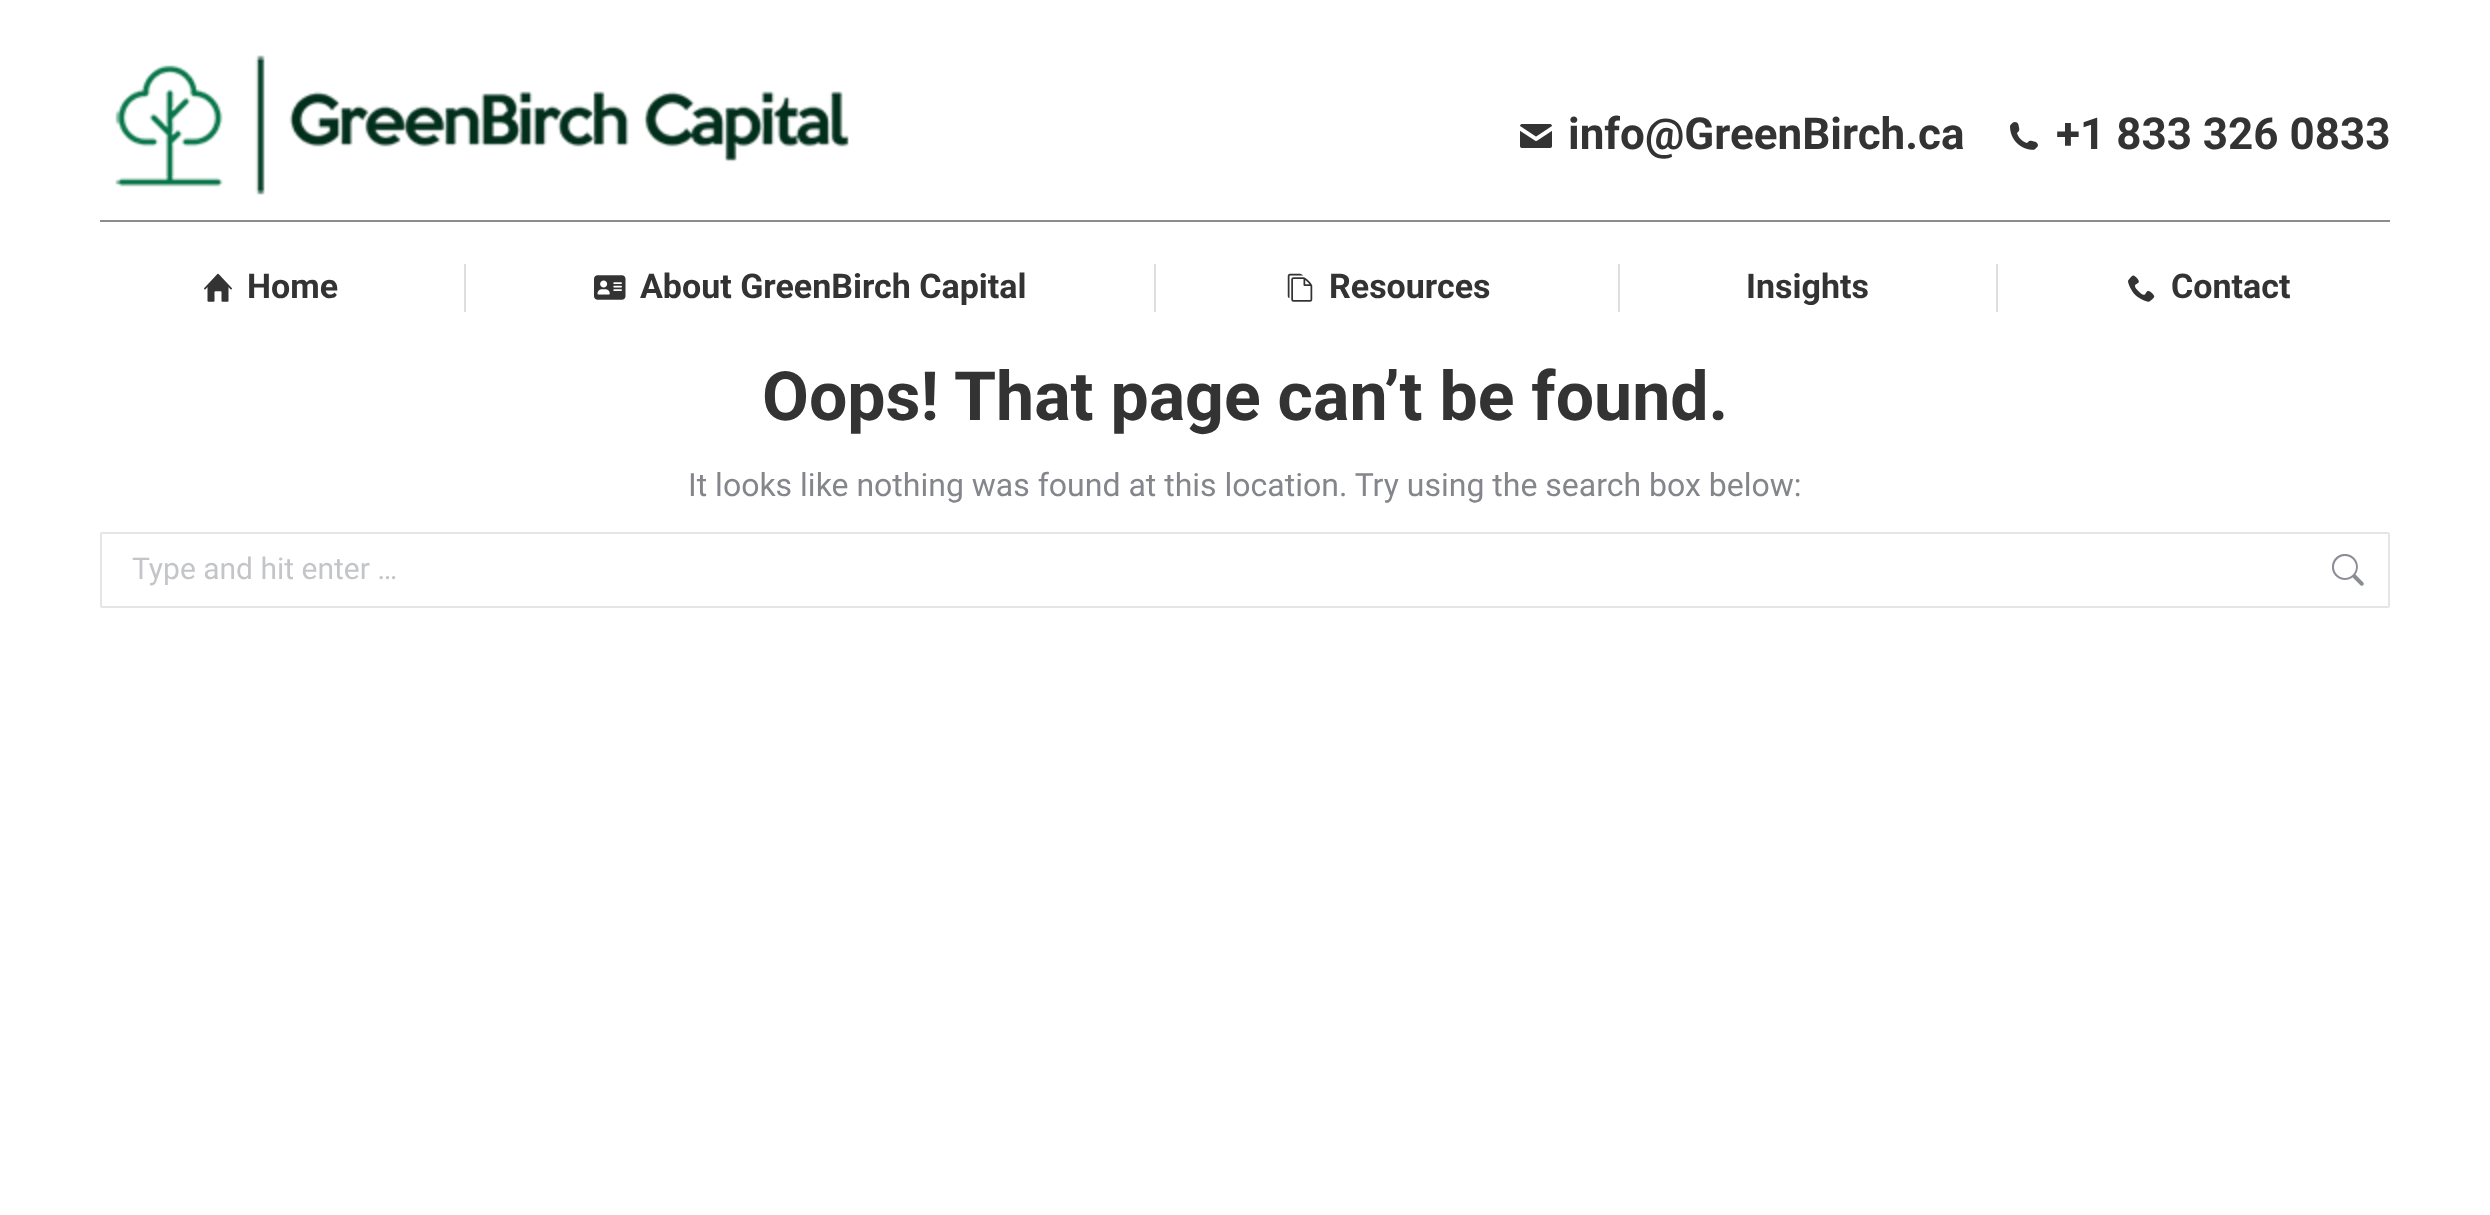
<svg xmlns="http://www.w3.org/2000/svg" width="2490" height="1215">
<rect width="100%" height="100%" fill="#fff"/>
<image x="115" y="55" width="734" height="140" href="media/1.png"/>
<image x="1520" y="124" width="32" height="24" href="media/2.png"/>
<text x="1568" y="149" style="font-family:Roboto;font-size:44px;font-weight:bold;fill:#333">info@GreenBirch.ca</text>
<image x="2010" y="122" width="28" height="28" href="media/3.png"/>
<text x="2056" y="149" style="font-family:Roboto;font-size:44px;font-weight:bold;fill:#333">+1 833 326 0833</text>
<rect x="100" y="220" width="2290" height="2" fill="#8c8c8c"/>
<image x="204" y="273" width="28" height="29" href="media/4.png"/>
<text x="247" y="298" style="font-family:Roboto;font-size:34px;font-weight:bold;fill:#333">Home</text>
<rect x="464" y="264" width="2" height="48" fill="#dedede"/>
<image x="594" y="275" width="32" height="25" href="media/5.png"/>
<text x="640" y="298" style="font-family:Roboto;font-size:34px;font-weight:bold;fill:#333">About GreenBirch Capital</text>
<rect x="1154" y="264" width="2" height="48" fill="#dedede"/>
<image x="1287" y="273" width="26" height="29" href="media/6.png"/>
<text x="1329" y="298" style="font-family:Roboto;font-size:34px;font-weight:bold;fill:#333">Resources</text>
<rect x="1618" y="264" width="2" height="48" fill="#dedede"/>
<text x="1746" y="298" style="font-family:Roboto;font-size:34px;font-weight:bold;fill:#333">Insights</text>
<rect x="1996" y="264" width="2" height="48" fill="#dedede"/>
<image x="2128" y="275" width="27" height="27" href="media/7.png"/>
<text x="2171" y="298" style="font-family:Roboto;font-size:34px;font-weight:bold;fill:#333">Contact</text>
<text x="762" y="420" style="font-family:Roboto;font-size:68px;font-weight:bold;fill:#333">Oops! That page can’t be found.</text>
<text x="688" y="496" style="font-family:Roboto;font-size:32px;fill:#85868c">It looks like nothing was found at this location. Try using the search box below:</text>
<rect x="101" y="533" width="2288" height="74" rx="1" fill="none" stroke="#e5e5e5" stroke-width="2"/>
<text x="132" y="579" style="font-family:Roboto;font-size:30px;fill:#c4c5c9">Type and hit enter …</text>
<image x="2332" y="554" width="32" height="32" href="media/8.png"/>
</svg>
